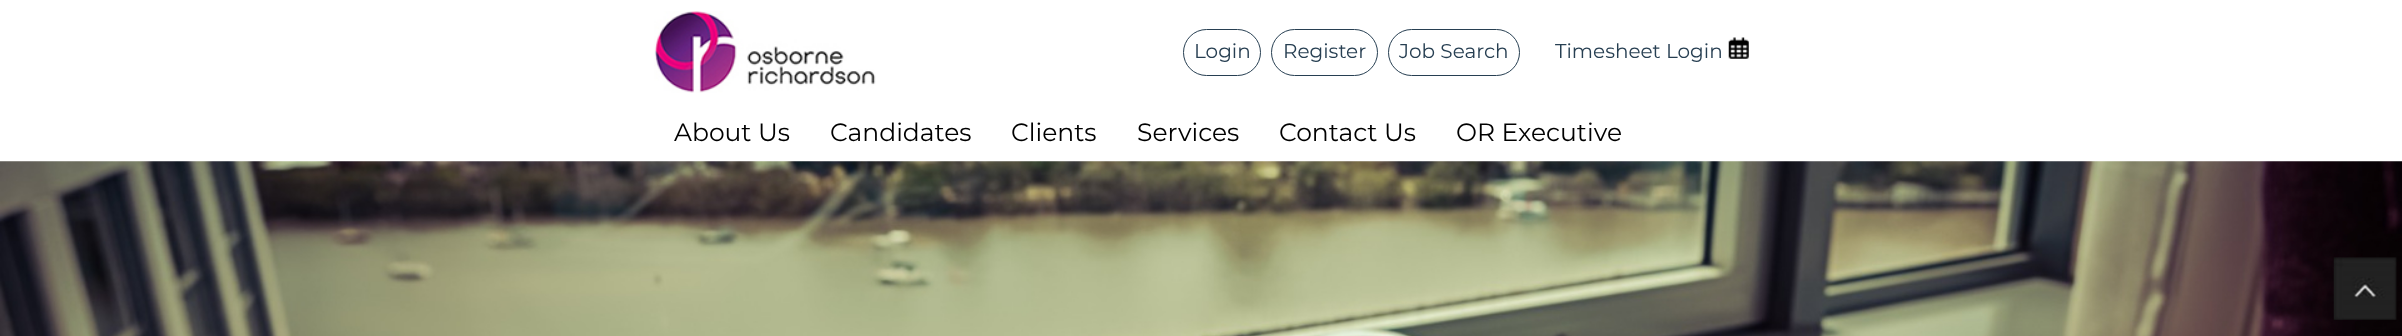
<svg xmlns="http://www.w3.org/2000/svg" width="2402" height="336">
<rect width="100%" height="100%" fill="#fff"/>
<image x="654" y="11" width="222" height="82" href="media/1.png"/>
<rect x="1183.5" y="29.5" width="77" height="46" rx="23" fill="none" stroke="#273f52"/>
<text x="1194" y="58" style="font-family:Montserrat;font-size:20px;fill:#273f52">Login</text>
<rect x="1271.5" y="29.5" width="106" height="46" rx="23" fill="none" stroke="#273f52"/>
<text x="1283" y="58" style="font-family:Montserrat;font-size:20px;fill:#273f52">Register</text>
<rect x="1388.5" y="29.5" width="131" height="46" rx="23" fill="none" stroke="#273f52"/>
<text x="1399" y="58" style="font-family:Montserrat;font-size:20px;fill:#273f52">Job Search</text>
<text x="1555" y="58" style="font-family:Montserrat;font-size:20px;fill:#273f52">Timesheet Login</text>
<image x="1728" y="37" width="21" height="22" href="media/2.png"/>
<text x="674" y="141" style="font-family:Montserrat;font-size:25px;fill:#000">About Us</text>
<text x="830" y="141" style="font-family:Montserrat;font-size:25px;fill:#000">Candidates</text>
<text x="1011" y="141" style="font-family:Montserrat;font-size:25px;fill:#000">Clients</text>
<text x="1137" y="141" style="font-family:Montserrat;font-size:25px;fill:#000">Services</text>
<text x="1279" y="141" style="font-family:Montserrat;font-size:25px;fill:#000">Contact Us</text>
<text x="1456" y="141" style="font-family:Montserrat;font-size:25px;fill:#000">OR Executive</text>
<image x="0" y="161" width="2402" height="175" href="media/3.png"/>
<image x="2333" y="257" width="64" height="63" href="media/4.png"/>
</svg>
